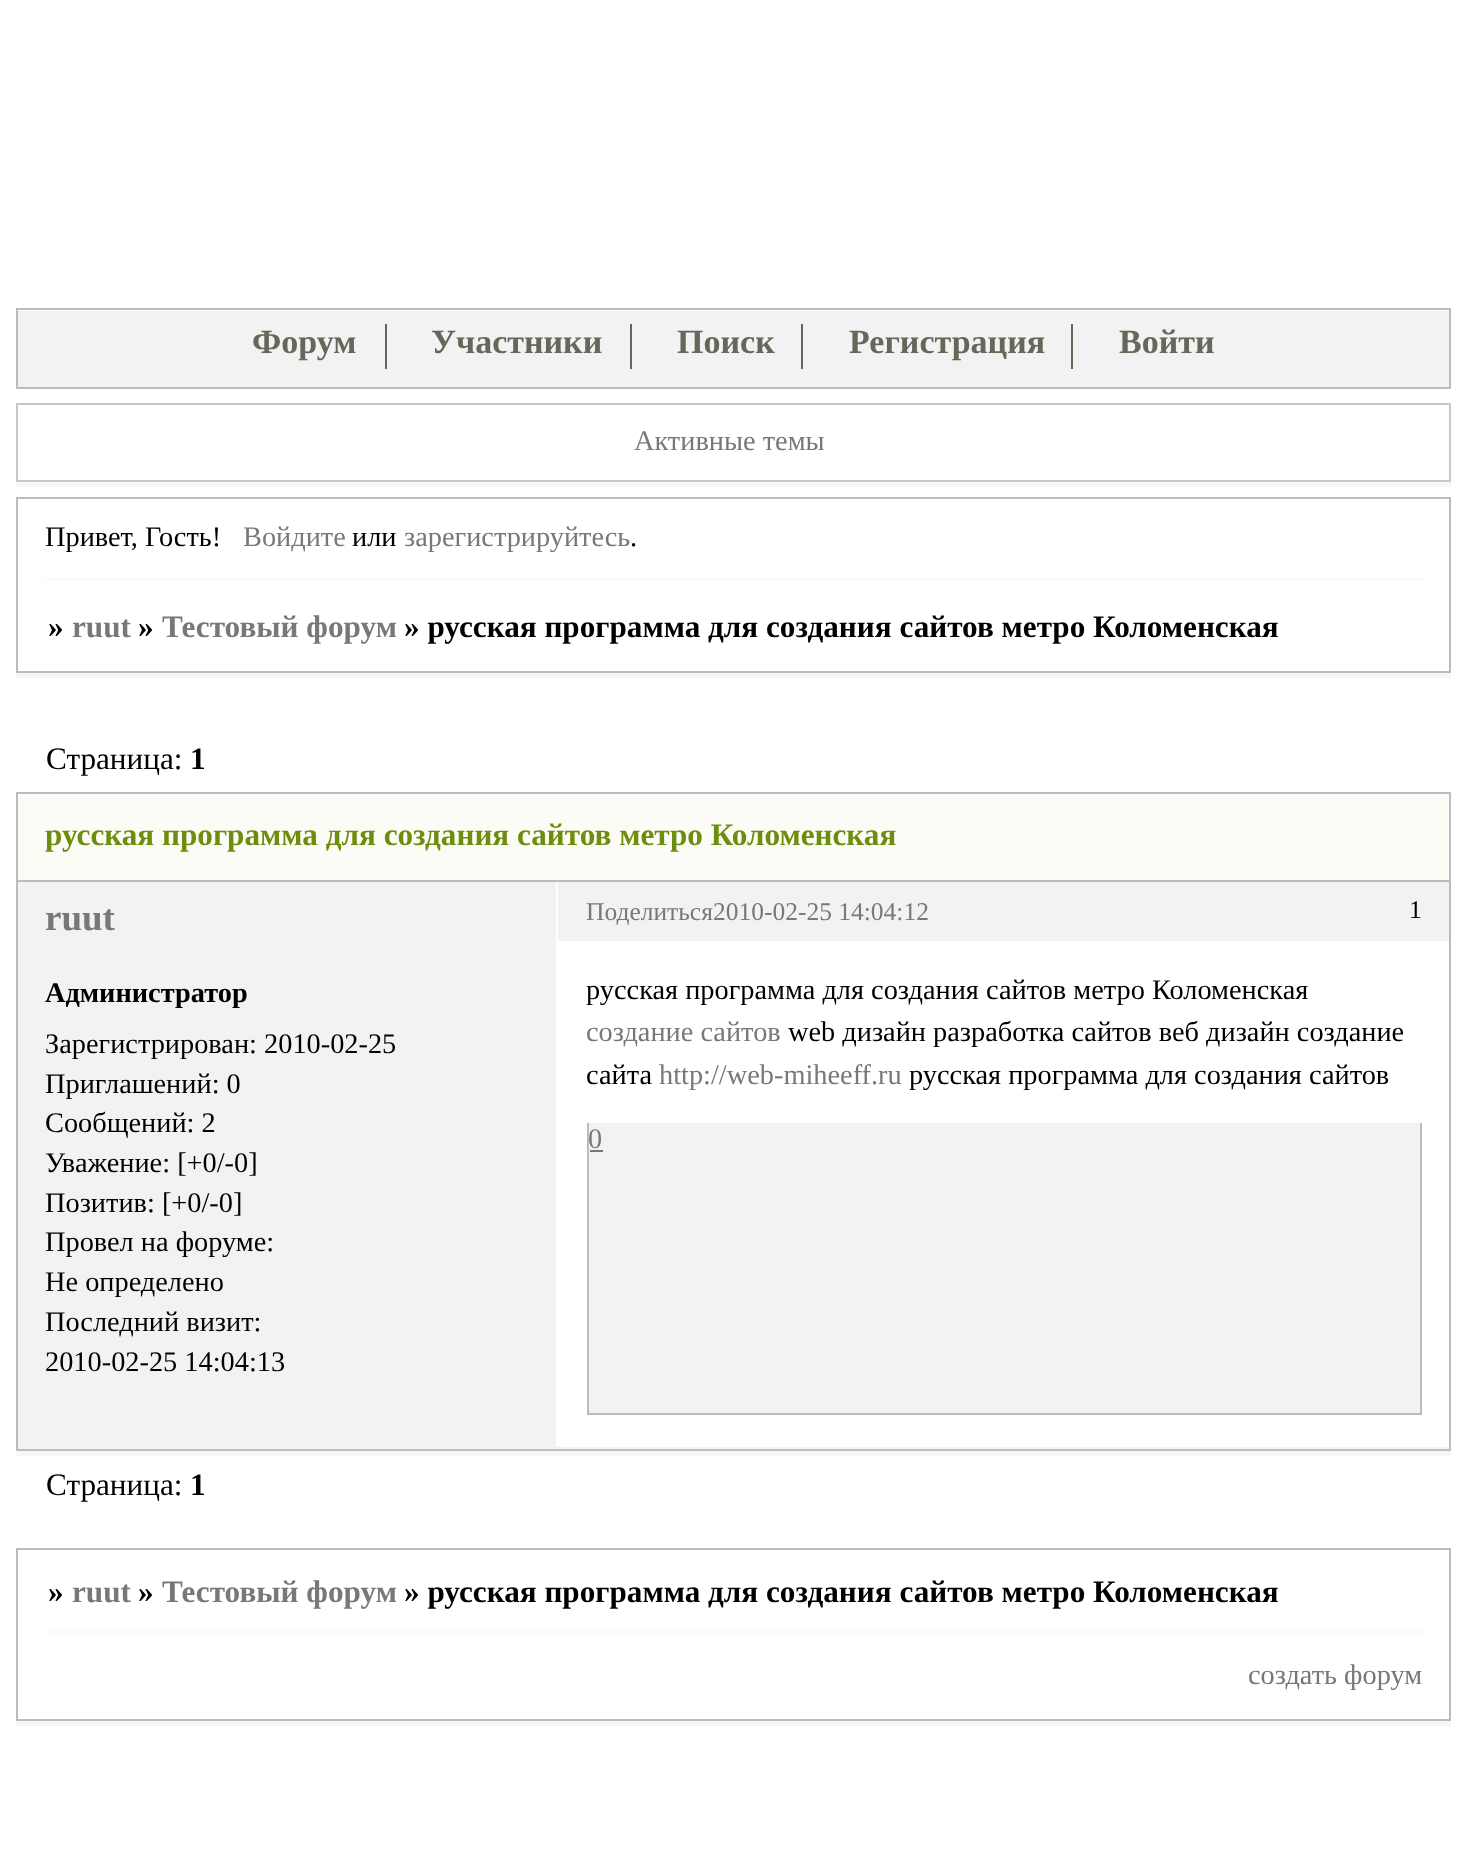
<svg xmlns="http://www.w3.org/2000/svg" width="1466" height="1849">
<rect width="100%" height="100%" fill="#fff"/>
<rect x="17" y="309" width="1433" height="79" fill="none" stroke="#b7bdc0" stroke-width="2"/>
<rect x="18" y="311" width="1431" height="76" fill="#f3f2f2"/>
<text x="252" y="353" style="font-family:Liberation Serif;font-size:34px;font-weight:bold;fill:#636958">Форум</text>
<text x="431" y="353" style="font-family:Liberation Serif;font-size:34px;font-weight:bold;fill:#636958">Участники</text>
<rect x="385" y="324" width="2" height="45" fill="#636958"/>
<text x="677" y="353" style="font-family:Liberation Serif;font-size:34px;font-weight:bold;fill:#636958">Поиск</text>
<rect x="630" y="324" width="2" height="45" fill="#636958"/>
<text x="849" y="353" style="font-family:Liberation Serif;font-size:34px;font-weight:bold;fill:#636958">Регистрация</text>
<rect x="801" y="324" width="2" height="45" fill="#636958"/>
<text x="1119" y="353" style="font-family:Liberation Serif;font-size:34px;font-weight:bold;fill:#636958">Войти</text>
<rect x="1071" y="324" width="2" height="45" fill="#636958"/>
<rect x="16" y="482" width="1435" height="5" fill="#f7f7f7"/>
<rect x="17" y="404" width="1433" height="77" fill="none" stroke="#c8c7c7" stroke-width="2"/>
<text x="634" y="450" style="font-family:Liberation Serif;font-size:28.35px;fill:#787878">Активные темы</text>
<rect x="16" y="497" width="1435" height="2" fill="#b7bdc0"/>
<rect x="1449" y="497" width="2" height="176" fill="#b7bdc0"/>
<rect x="16" y="497" width="2" height="86" fill="#b7bdc0"/>
<text x="45" y="546" style="font-family:Liberation Serif;font-size:28.35px;fill:#000">Привет, Гость!</text>
<text x="243" y="546" style="font-family:Liberation Serif;font-size:28.35px;fill:#787878">Войдите</text>
<text x="352" y="546" style="font-family:Liberation Serif;font-size:28.35px;fill:#000">или</text>
<text x="404" y="546" style="font-family:Liberation Serif;font-size:28.35px;fill:#787878">зарегистрируйтесь</text>
<text x="630" y="546" style="font-family:Liberation Serif;font-size:28.35px;fill:#000">.</text>
<rect x="43" y="578" width="1381" height="2" fill="#fafafa"/>
<rect x="16" y="673" width="1435" height="5" fill="#f7f7f7"/>
<rect x="16" y="671" width="1435" height="2" fill="#b7bdc0"/>
<rect x="16" y="578" width="2" height="95" fill="#b7bdc0"/>
<text x="48" y="637" style="font-family:Liberation Serif;font-size:31.2px;font-weight:bold;fill:#000">»</text>
<text x="72" y="637" style="font-family:Liberation Serif;font-size:31.2px;font-weight:bold;fill:#787878">ruut</text>
<text x="138" y="637" style="font-family:Liberation Serif;font-size:31.2px;font-weight:bold;fill:#000">»</text>
<text x="162" y="637" style="font-family:Liberation Serif;font-size:31.2px;font-weight:bold;fill:#787878">Тестовый форум</text>
<text x="404" y="637" style="font-family:Liberation Serif;font-size:31.2px;font-weight:bold;fill:#000">» русская программа для создания сайтов метро Коломенская</text>
<text x="46" y="769" style="font-family:Liberation Serif;font-size:31.2px;fill:#000">Страница:</text>
<text x="190" y="769" style="font-family:Liberation Serif;font-size:31.2px;font-weight:bold;fill:#000">1</text>
<rect x="18" y="794" width="1431" height="86" fill="#fcfbf6"/>
<rect x="16" y="792" width="1435" height="2" fill="#b7bdc0"/>
<rect x="1449" y="792" width="2" height="88" fill="#b7bdc0"/>
<rect x="16" y="792" width="2" height="88" fill="#b7bdc0"/>
<text x="45" y="845" style="font-family:Liberation Serif;font-size:31.2px;font-weight:bold;fill:#6b8f0c">русская программа для создания сайтов метро Коломенская</text>
<rect x="16" y="1451" width="1435" height="5" fill="#f7f7f7"/>
<rect x="18" y="882" width="1431" height="59" fill="#f3f2f2"/>
<rect x="16" y="880" width="1435" height="2" fill="#b7bdc0"/>
<rect x="1449" y="880" width="2" height="571" fill="#b7bdc0"/>
<rect x="16" y="880" width="2" height="63" fill="#b7bdc0"/>
<rect x="556" y="882" width="2" height="61" fill="#fff"/>
<text x="586" y="920" style="font-family:Liberation Serif;font-size:25.5px;fill:#787878">Поделиться2010-02-25 14:04:12</text>
<text x="1409" y="918" style="font-family:Liberation Serif;font-size:25.5px;fill:#000">1</text>
<rect x="18" y="941" width="1431" height="508" fill="#f3f2f2"/>
<rect x="16" y="1449" width="1435" height="2" fill="#b7bdc0"/>
<rect x="16" y="941" width="2" height="510" fill="#b7bdc0"/>
<text x="45" y="930" style="font-family:Liberation Serif;font-size:37px;font-weight:bold;fill:#787878">ruut</text>
<text x="45" y="1002" style="font-family:Liberation Serif;font-size:28.35px;font-weight:bold;fill:#000">Администратор</text>
<text x="45" y="1053" style="font-family:Liberation Serif;font-size:28.35px;fill:#000">Зарегистрирован: 2010-02-25</text>
<text x="45" y="1093" style="font-family:Liberation Serif;font-size:28.35px;fill:#000">Приглашений: 0</text>
<text x="45" y="1132" style="font-family:Liberation Serif;font-size:28.35px;fill:#000">Сообщений: 2</text>
<text x="45" y="1172" style="font-family:Liberation Serif;font-size:28.35px;fill:#000">Уважение: [+0/-0]</text>
<text x="45" y="1212" style="font-family:Liberation Serif;font-size:28.35px;fill:#000">Позитив: [+0/-0]</text>
<text x="45" y="1251" style="font-family:Liberation Serif;font-size:28.35px;fill:#000">Провел на форуме:</text>
<text x="45" y="1291" style="font-family:Liberation Serif;font-size:28.35px;fill:#000">Не определено</text>
<text x="45" y="1331" style="font-family:Liberation Serif;font-size:28.35px;fill:#000">Последний визит:</text>
<text x="45" y="1371" style="font-family:Liberation Serif;font-size:28.35px;fill:#000">2010-02-25 14:04:13</text>
<rect x="556" y="941" width="893" height="506" fill="#fff"/>
<text x="586" y="999" style="font-family:Liberation Serif;font-size:28.35px;fill:#000">русская программа для создания сайтов метро Коломенская</text>
<text x="586" y="1041" style="font-family:Liberation Serif;font-size:28.35px;fill:#787878">создание сайтов</text>
<text x="788" y="1041" style="font-family:Liberation Serif;font-size:28.35px;fill:#000">web дизайн разработка сайтов веб дизайн создание</text>
<text x="586" y="1084" style="font-family:Liberation Serif;font-size:28.35px;fill:#000">сайта</text>
<text x="659" y="1084" style="font-family:Liberation Serif;font-size:28.35px;fill:#787878">http://web-miheeff.ru</text>
<text x="909" y="1084" style="font-family:Liberation Serif;font-size:28.35px;fill:#000">русская программа для создания сайтов</text>
<rect x="589" y="1123" width="831" height="290" fill="#f3f2f2"/>
<rect x="1420" y="1123" width="2" height="292" fill="#b7bdc0"/>
<rect x="587" y="1413" width="835" height="2" fill="#b7bdc0"/>
<rect x="587" y="1123" width="2" height="292" fill="#b7bdc0"/>
<text x="588" y="1148" style="font-family:Liberation Serif;font-size:28.35px;fill:#787878">0</text>
<rect x="590" y="1150" width="13" height="2" fill="#787878"/>
<text x="46" y="1495" style="font-family:Liberation Serif;font-size:31.2px;fill:#000">Страница:</text>
<text x="190" y="1495" style="font-family:Liberation Serif;font-size:31.2px;font-weight:bold;fill:#000">1</text>
<rect x="16" y="1548" width="1435" height="2" fill="#b7bdc0"/>
<rect x="1449" y="1631" width="2" height="90" fill="#b7bdc0"/>
<rect x="1449" y="1548" width="2" height="88" fill="#b7bdc0"/>
<rect x="16" y="1719" width="1435" height="2" fill="#b7bdc0"/>
<rect x="16" y="1631" width="2" height="90" fill="#b7bdc0"/>
<rect x="16" y="1548" width="2" height="88" fill="#b7bdc0"/>
<text x="48" y="1602" style="font-family:Liberation Serif;font-size:31.2px;font-weight:bold;fill:#000">»</text>
<text x="72" y="1602" style="font-family:Liberation Serif;font-size:31.2px;font-weight:bold;fill:#787878">ruut</text>
<text x="138" y="1602" style="font-family:Liberation Serif;font-size:31.2px;font-weight:bold;fill:#000">»</text>
<text x="162" y="1602" style="font-family:Liberation Serif;font-size:31.2px;font-weight:bold;fill:#787878">Тестовый форум</text>
<text x="404" y="1602" style="font-family:Liberation Serif;font-size:31.2px;font-weight:bold;fill:#000">» русская программа для создания сайтов метро Коломенская</text>
<rect x="43" y="1631" width="1381" height="2" fill="#fafafa"/>
<rect x="16" y="1721" width="1435" height="5" fill="#f7f7f7"/>
<text x="1248" y="1684" style="font-family:Liberation Serif;font-size:28.35px;fill:#787878">создать форум</text>
</svg>
